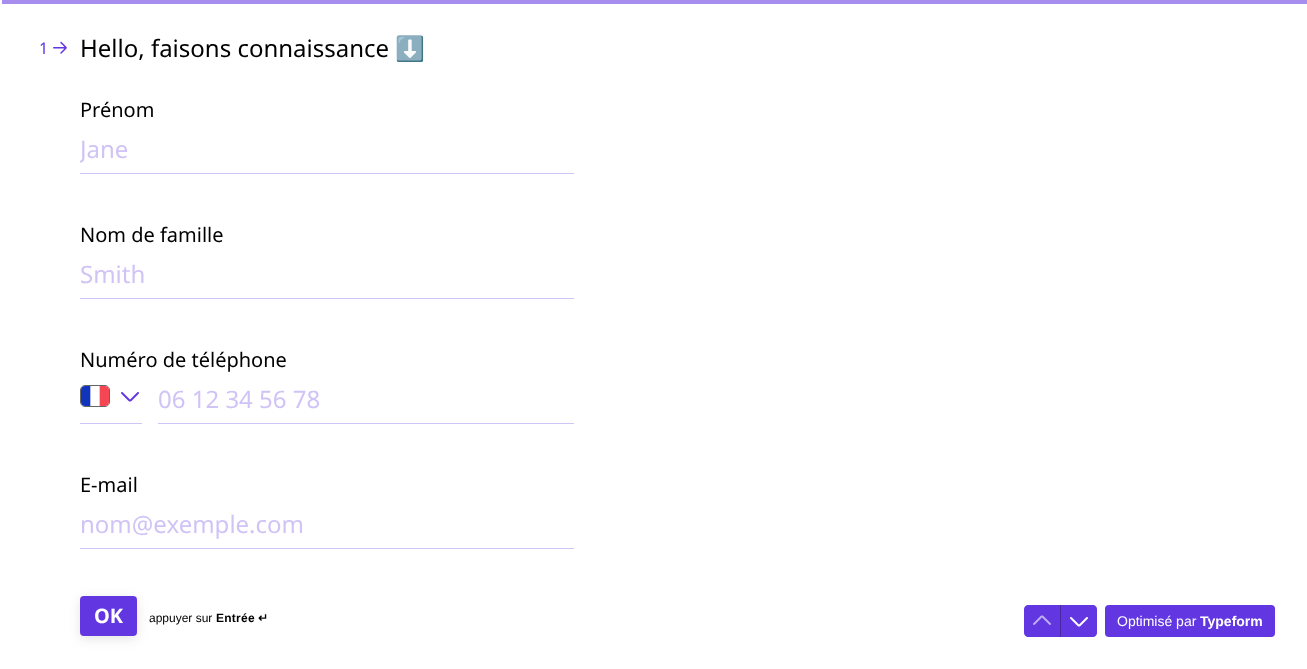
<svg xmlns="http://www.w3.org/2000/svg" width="1307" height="669">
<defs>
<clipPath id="clip1"><rect x="80" y="132" width="494" height="33"/></clipPath>
</defs>
<rect width="100%" height="100%" fill="#fff"/>
<rect width="1307" height="4" fill="#a78eee"/>
<rect width="2" height="4" fill="#fff"/>
<text x="39" y="54" style="font-family:Noto Sans;font-size:16px;fill:#6236e1">1</text>
<image x="53" y="41" width="14" height="13" href="media/1.png"/>
<text x="80" y="57" style="font-family:Noto Sans;font-size:24px;fill:#000">Hello, faisons connaissance</text>
<text x="395" y="57" style="font-family:Noto Color Emoji;font-size:24px;fill:#000">⬇️</text>
<text x="80" y="117" style="font-family:Noto Sans;font-size:20px;fill:#000">Prénom</text>
<rect x="80" y="173" width="494" height="1" fill="#d0c3f6"/>
<g clip-path="url(#clip1)">
<text x="80" y="158" style="font-family:Noto Sans;font-size:24px;fill:#d0c3f6">Jane</text>
</g>
<text x="80" y="242" style="font-family:Noto Sans;font-size:20px;fill:#000">Nom de famille</text>
<rect x="80" y="298" width="494" height="1" fill="#d0c3f6"/>
<text x="80" y="283" style="font-family:Noto Sans;font-size:24px;fill:#d0c3f6">Smith</text>
<text x="80" y="367" style="font-family:Noto Sans;font-size:20px;fill:#000">Numéro de téléphone</text>
<rect x="80" y="423" width="62" height="1" fill="#d0c3f6"/>
<rect x="80.5" y="385.5" width="29" height="21" rx="4.5" fill="none" stroke="#666"/>
<rect x="81" y="386" width="28" height="20" rx="4" fill="#fff"/>
<image x="81" y="386" width="28" height="20" href="media/2.png"/>
<image x="121" y="392" width="18" height="10" href="media/3.png"/>
<rect x="158" y="423" width="416" height="1" fill="#d0c3f6"/>
<text x="158" y="408" style="font-family:Noto Sans;font-size:24px;fill:#d0c3f6">06 12 34 56 78</text>
<text x="80" y="492" style="font-family:Noto Sans;font-size:20px;fill:#000">E-mail</text>
<rect x="80" y="548" width="494" height="1" fill="#d0c3f6"/>
<text x="80" y="533" style="font-family:Noto Sans;font-size:24px;fill:#d0c3f6">nom@exemple.com</text>
<rect x="80" y="599" width="57" height="40" rx="4" fill="#0000001a" filter="blur(6px)"/>
<rect x="80" y="596" width="57" height="40" rx="4" fill="#6236e1"/>
<text x="94" y="623" style="font-family:Noto Sans;font-size:20px;font-weight:bold;fill:#fff">OK</text>
<text x="149" y="622" style="font-family:Liberation Sans;font-size:12px;fill:#000">appuyer sur</text>
<text x="216" y="622" style="font-family:Liberation Sans;font-size:12px;font-weight:bold;letter-spacing:0.25px;fill:#000">Entrée</text>
<text x="258" y="622" style="font-family:DejaVu Sans;font-size:12px;font-weight:bold;letter-spacing:0.25px;fill:#000">↵</text>
<path d="M1028 605h32v32h-32c-2 0-4-2-4-4v-24c0-2 2-4 4-4z" fill="#6236e1"/>
<image x="1033" y="615" width="18" height="10" href="media/4.png"/>
<rect x="1060" y="605" width="1" height="32" fill="#4727a4"/>
<path d="M1061 605h32c2 0 4 2 4 4v24c0 2-2 4-4 4h-32z" fill="#6236e1"/>
<image x="1070" y="617" width="18" height="10" href="media/5.png"/>
<rect x="1105" y="605" width="170" height="32" rx="4" fill="#6236e1"/>
<text x="1117" y="626" style="font-family:Liberation Sans;font-size:14px;fill:#fff">Optimisé par</text>
<text x="1200" y="626" style="font-family:Liberation Sans;font-size:14px;font-weight:bold;fill:#fff">Typeform</text>
</svg>
